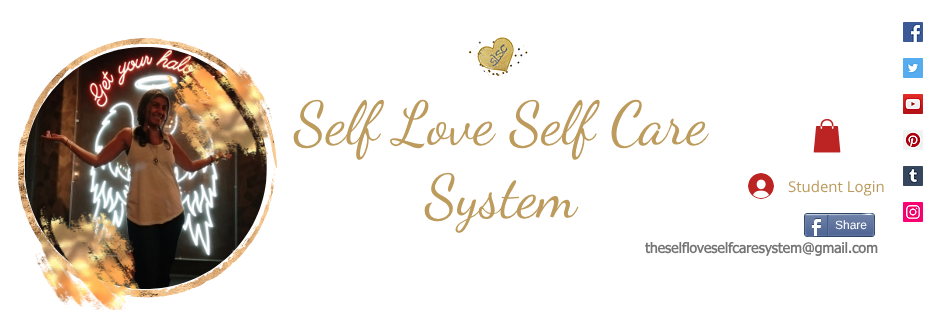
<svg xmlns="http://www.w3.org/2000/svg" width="937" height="321">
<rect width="100%" height="100%" fill="#fff"/>
<image x="18" y="38" width="259" height="272" href="media/1.png"/>
<image x="469" y="37" width="59" height="39" href="media/2.png"/>
<image x="903" y="22" width="20" height="20" href="media/3.png"/>
<image x="903" y="58" width="20" height="20" href="media/4.png"/>
<image x="903" y="94" width="20" height="20" href="media/5.png"/>
<image x="903" y="130" width="20" height="20" href="media/6.png"/>
<image x="903" y="166" width="20" height="20" href="media/7.png"/>
<image x="903" y="202" width="20" height="20" href="media/8.png"/>
<text x="294" y="143" style="font-family:Dancing Script;font-size:60px;fill:#bc9b5d">Self Love Self Care</text>
<text x="425" y="216" style="font-family:Dancing Script;font-size:60px;fill:#bc9b5d">System</text>
<image x="813" y="119" width="28" height="34" href="media/9.png"/>
<image x="748" y="173" width="26" height="26" href="media/10.png"/>
<text x="788" y="192" style="font-family:Open Sans;font-size:15px;fill:#bc9b5d">Student Login</text>
<rect x="804.5" y="213.5" width="70" height="23" rx="2.5" fill="none" stroke="#2d4565"/>
<image x="805" y="215" width="69" height="21" href="media/11.png"/>
<path d="M806 215l55-.5c4 0 9-2.5 12 .5" fill="none" stroke="#9aabc6"/>
<path d="M873 215c1 .5 1 19.5 0 20" fill="none" stroke="#6f83ad"/>
<path d="M873 235l-55 .5c-4 0-9 2.5-12-.5" fill="none" stroke="#6176a3"/>
<path d="M806 235c-1-.5-1-19.5 0-20" fill="none" stroke="#6f83ad"/>
<image x="811" y="218" width="10" height="18" href="media/12.png"/>
<rect x="827" y="215" width="1" height="21" fill="#425e85"/>
<text x="835" y="229" style="font-family:Liberation Sans;font-size:12px;fill:#fff">Share</text>
<rect x="828" y="215" width="1" height="20" fill="#6176a3"/>
<text x="645" y="253" style="font-family:tahoma;font-size:14px;font-weight:bold;fill:#757575">theselfloveselfcaresystem@gmail.com</text>
</svg>
